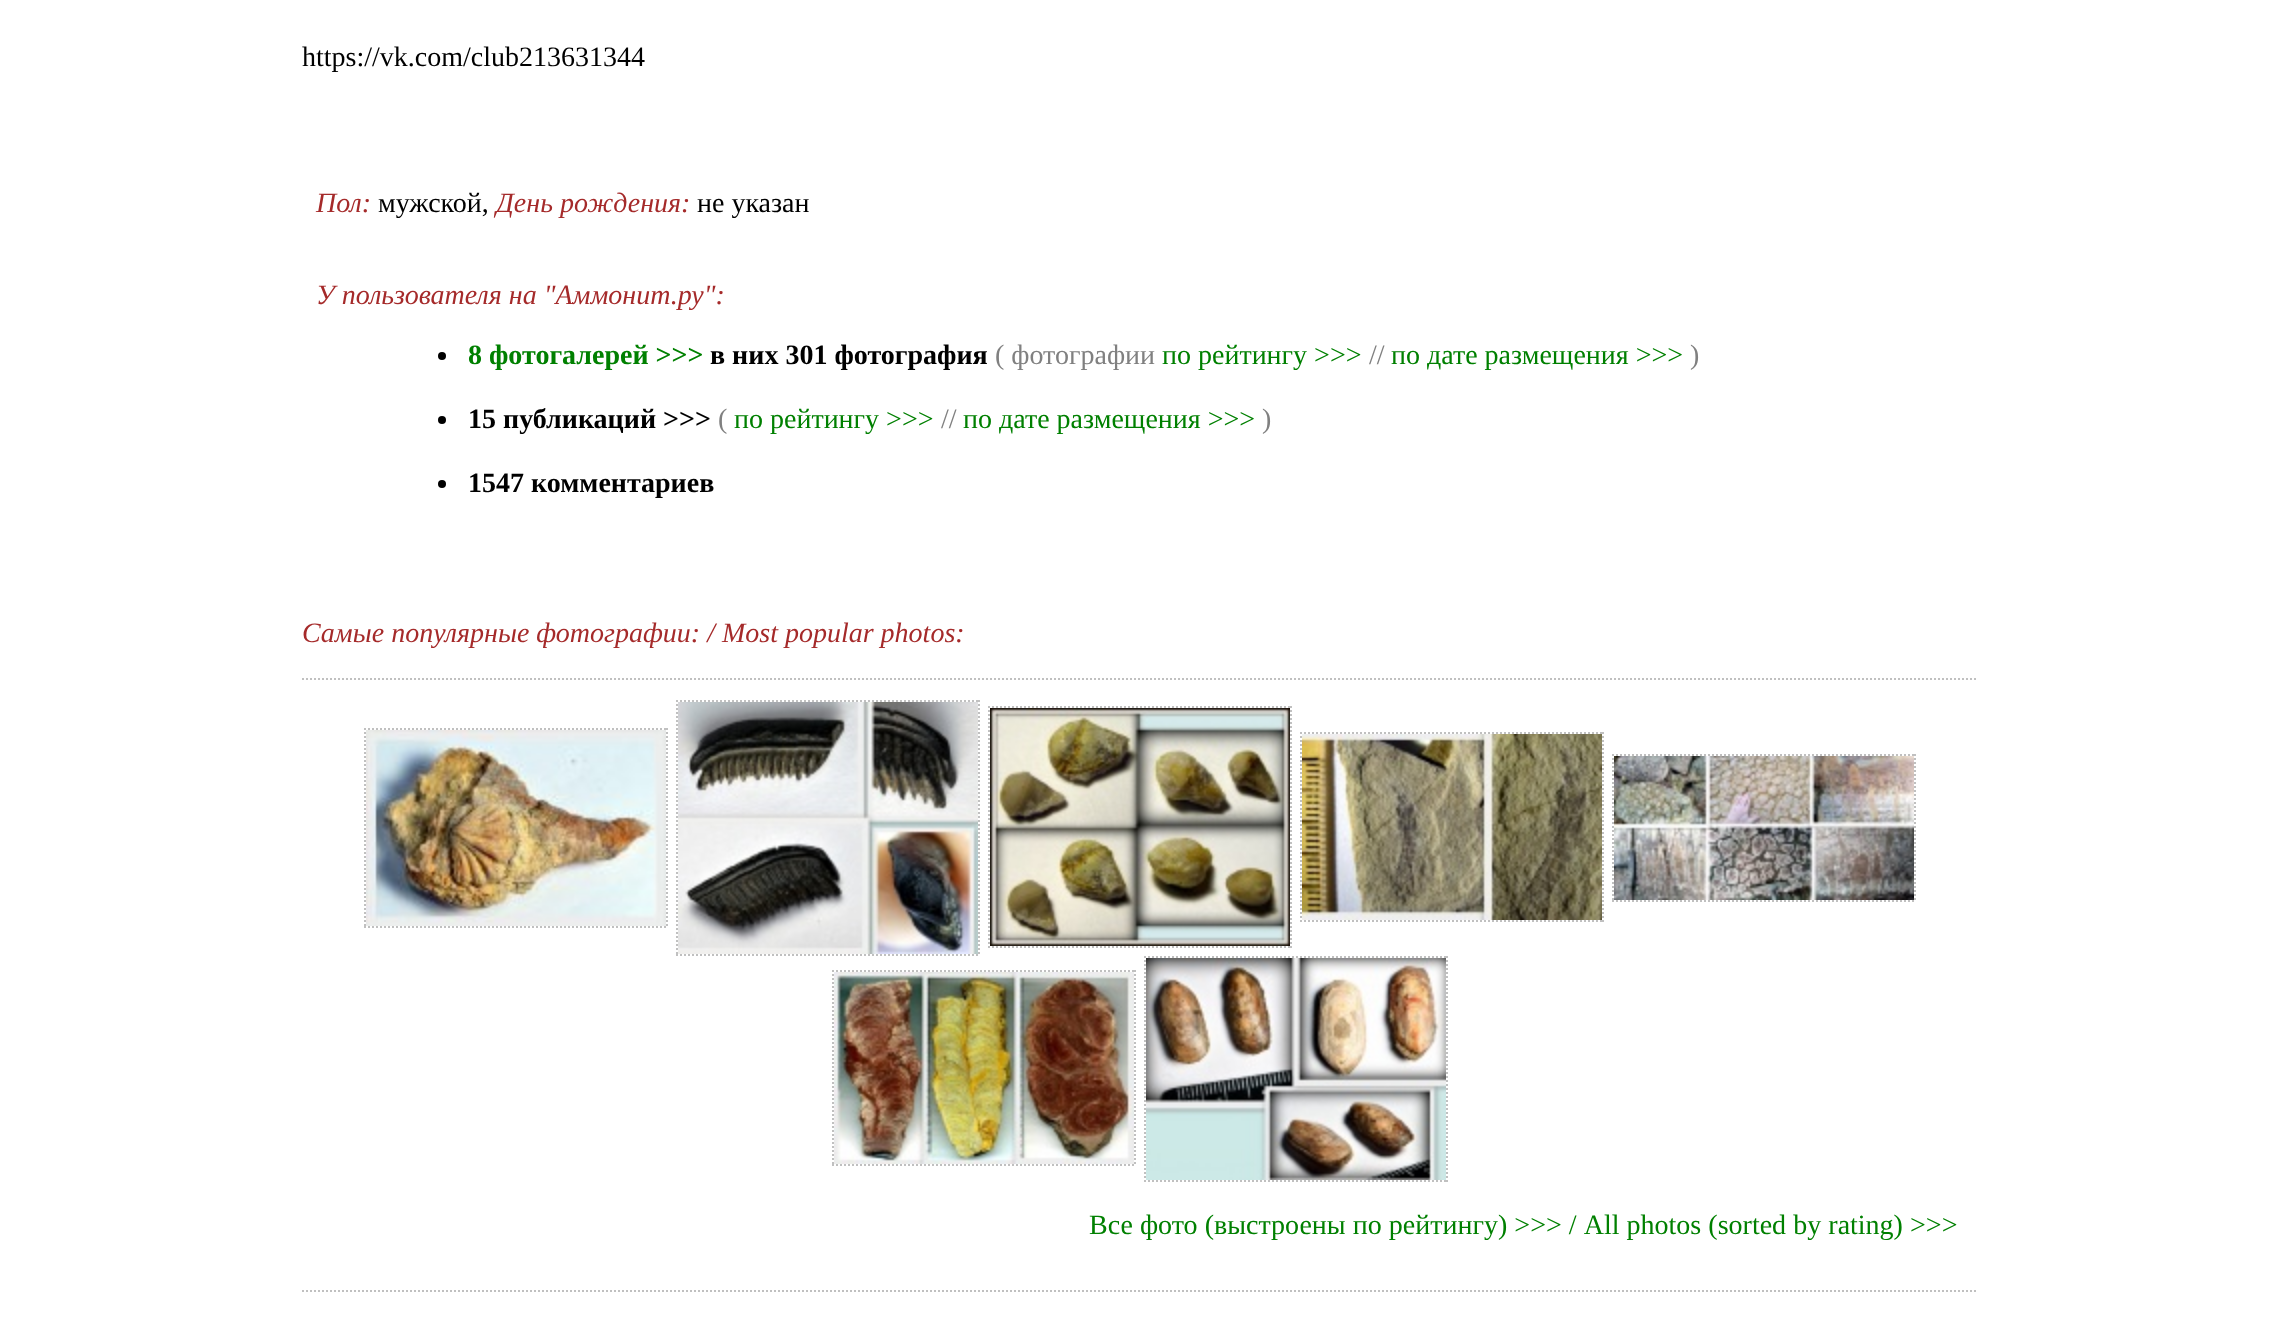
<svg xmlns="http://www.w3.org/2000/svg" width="2277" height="1322">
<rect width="100%" height="100%" fill="#fff"/>
<text x="302" y="66" style="font-family:Liberation Serif;font-size:28px;fill:#000">https://vk.com/club213631344</text>
<text x="316" y="212" style="font-family:Liberation Serif;font-size:28px;font-style:italic;fill:#a52a2a">Пол:</text>
<text x="378" y="212" style="font-family:Liberation Serif;font-size:28px;fill:#000">мужской,</text>
<text x="496" y="212" style="font-family:Liberation Serif;font-size:28px;font-style:italic;fill:#a52a2a">День рождения:</text>
<text x="697" y="212" style="font-family:Liberation Serif;font-size:28px;fill:#000">не указан</text>
<text x="316" y="304" style="font-family:Liberation Serif;font-size:28px;font-style:italic;fill:#a52a2a">У пользователя на "Аммонит.ру":</text>
<circle cx="442" cy="356" r="4" fill="#000"/>
<text x="468" y="364" style="font-family:Liberation Serif;font-size:28px;font-weight:bold;fill:#008000">8 фотогалерей &gt;&gt;&gt;</text>
<text x="710" y="364" style="font-family:Liberation Serif;font-size:28px;font-weight:bold;fill:#000">в них 301 фотография</text>
<text x="995" y="364" style="font-family:Liberation Serif;font-size:28px;fill:#808080">( фотографии</text>
<text x="1162" y="364" style="font-family:Liberation Serif;font-size:28px;fill:#008000">по рейтингу &gt;&gt;&gt;</text>
<text x="1369" y="364" style="font-family:Liberation Serif;font-size:28px;fill:#808080">//</text>
<text x="1391" y="364" style="font-family:Liberation Serif;font-size:28px;fill:#008000">по дате размещения &gt;&gt;&gt;</text>
<text x="1690" y="364" style="font-family:Liberation Serif;font-size:28px;fill:#808080">)</text>
<circle cx="442" cy="420" r="4" fill="#000"/>
<text x="468" y="428" style="font-family:Liberation Serif;font-size:28px;font-weight:bold;fill:#000">15 публикаций &gt;&gt;&gt;</text>
<text x="718" y="428" style="font-family:Liberation Serif;font-size:28px;fill:#808080">(</text>
<text x="734" y="428" style="font-family:Liberation Serif;font-size:28px;fill:#008000">по рейтингу &gt;&gt;&gt;</text>
<text x="941" y="428" style="font-family:Liberation Serif;font-size:28px;fill:#808080">//</text>
<text x="963" y="428" style="font-family:Liberation Serif;font-size:28px;fill:#008000">по дате размещения &gt;&gt;&gt;</text>
<text x="1262" y="428" style="font-family:Liberation Serif;font-size:28px;fill:#808080">)</text>
<circle cx="442" cy="484" r="4" fill="#000"/>
<text x="468" y="492" style="font-family:Liberation Serif;font-size:28px;font-weight:bold;fill:#000">1547 комментариев</text>
<text x="302" y="642" style="font-family:Liberation Serif;font-size:28px;font-style:italic;fill:#a52a2a">Самые популярные фотографии: / Most popular photos:</text>
<path d="M302 679h1674" fill="none" stroke="#c0c0c0" stroke-width="2" stroke-dasharray="2 2"/>
<path d="M302 1291h1674" fill="none" stroke="#c0c0c0" stroke-width="2" stroke-dasharray="2 2"/>
<path d="M676 701h304" fill="none" stroke="#c0c0c0" stroke-width="2" stroke-dasharray="2 2"/>
<path d="M677 700v256" fill="none" stroke="#c0c0c0" stroke-width="2" stroke-dasharray="2 2"/>
<image x="678" y="702" width="300" height="252" href="media/1.png"/>
<path d="M979 700v256" fill="none" stroke="#c0c0c0" stroke-width="2" stroke-dasharray="2 2"/>
<path d="M988 707h304" fill="none" stroke="#c0c0c0" stroke-width="2" stroke-dasharray="2 2"/>
<path d="M364 729h304" fill="none" stroke="#c0c0c0" stroke-width="2" stroke-dasharray="2 2"/>
<path d="M988 947h304" fill="none" stroke="#c0c0c0" stroke-width="2" stroke-dasharray="2 2"/>
<path d="M989 706v242" fill="none" stroke="#c0c0c0" stroke-width="2" stroke-dasharray="2 2"/>
<image x="990" y="708" width="300" height="238" href="media/2.png"/>
<path d="M1291 706v242" fill="none" stroke="#c0c0c0" stroke-width="2" stroke-dasharray="2 2"/>
<path d="M365 728v200" fill="none" stroke="#c0c0c0" stroke-width="2" stroke-dasharray="2 2"/>
<image x="366" y="730" width="300" height="196" href="media/3.png"/>
<path d="M667 728v200" fill="none" stroke="#c0c0c0" stroke-width="2" stroke-dasharray="2 2"/>
<path d="M1300 733h304" fill="none" stroke="#c0c0c0" stroke-width="2" stroke-dasharray="2 2"/>
<path d="M1300 921h304" fill="none" stroke="#c0c0c0" stroke-width="2" stroke-dasharray="2 2"/>
<path d="M1301 732v190" fill="none" stroke="#c0c0c0" stroke-width="2" stroke-dasharray="2 2"/>
<image x="1302" y="734" width="300" height="186" href="media/4.png"/>
<path d="M1603 732v190" fill="none" stroke="#c0c0c0" stroke-width="2" stroke-dasharray="2 2"/>
<path d="M1612 755h304" fill="none" stroke="#c0c0c0" stroke-width="2" stroke-dasharray="2 2"/>
<path d="M1613 754v148" fill="none" stroke="#c0c0c0" stroke-width="2" stroke-dasharray="2 2"/>
<image x="1614" y="756" width="300" height="144" href="media/5.png"/>
<path d="M1915 754v148" fill="none" stroke="#c0c0c0" stroke-width="2" stroke-dasharray="2 2"/>
<path d="M1612 901h304" fill="none" stroke="#c0c0c0" stroke-width="2" stroke-dasharray="2 2"/>
<path d="M364 927h304" fill="none" stroke="#c0c0c0" stroke-width="2" stroke-dasharray="2 2"/>
<path d="M676 955h304" fill="none" stroke="#c0c0c0" stroke-width="2" stroke-dasharray="2 2"/>
<path d="M1144 957h304" fill="none" stroke="#c0c0c0" stroke-width="2" stroke-dasharray="2 2"/>
<path d="M832 971h304" fill="none" stroke="#c0c0c0" stroke-width="2" stroke-dasharray="2 2"/>
<path d="M1144 1181h304" fill="none" stroke="#c0c0c0" stroke-width="2" stroke-dasharray="2 2"/>
<path d="M1145 956v226" fill="none" stroke="#c0c0c0" stroke-width="2" stroke-dasharray="2 2"/>
<image x="1146" y="958" width="300" height="222" href="media/6.png"/>
<path d="M1447 956v226" fill="none" stroke="#c0c0c0" stroke-width="2" stroke-dasharray="2 2"/>
<path d="M833 970v196" fill="none" stroke="#c0c0c0" stroke-width="2" stroke-dasharray="2 2"/>
<image x="834" y="972" width="300" height="192" href="media/7.png"/>
<path d="M1135 970v196" fill="none" stroke="#c0c0c0" stroke-width="2" stroke-dasharray="2 2"/>
<path d="M832 1165h304" fill="none" stroke="#c0c0c0" stroke-width="2" stroke-dasharray="2 2"/>
<text x="1089" y="1234" word-spacing="0.1" style="font-family:Liberation Serif;font-size:28px;fill:#008000">Все фото (выстроены по рейтингу) &gt;&gt;&gt; / All photos (sorted by rating) &gt;&gt;&gt;</text>
</svg>
